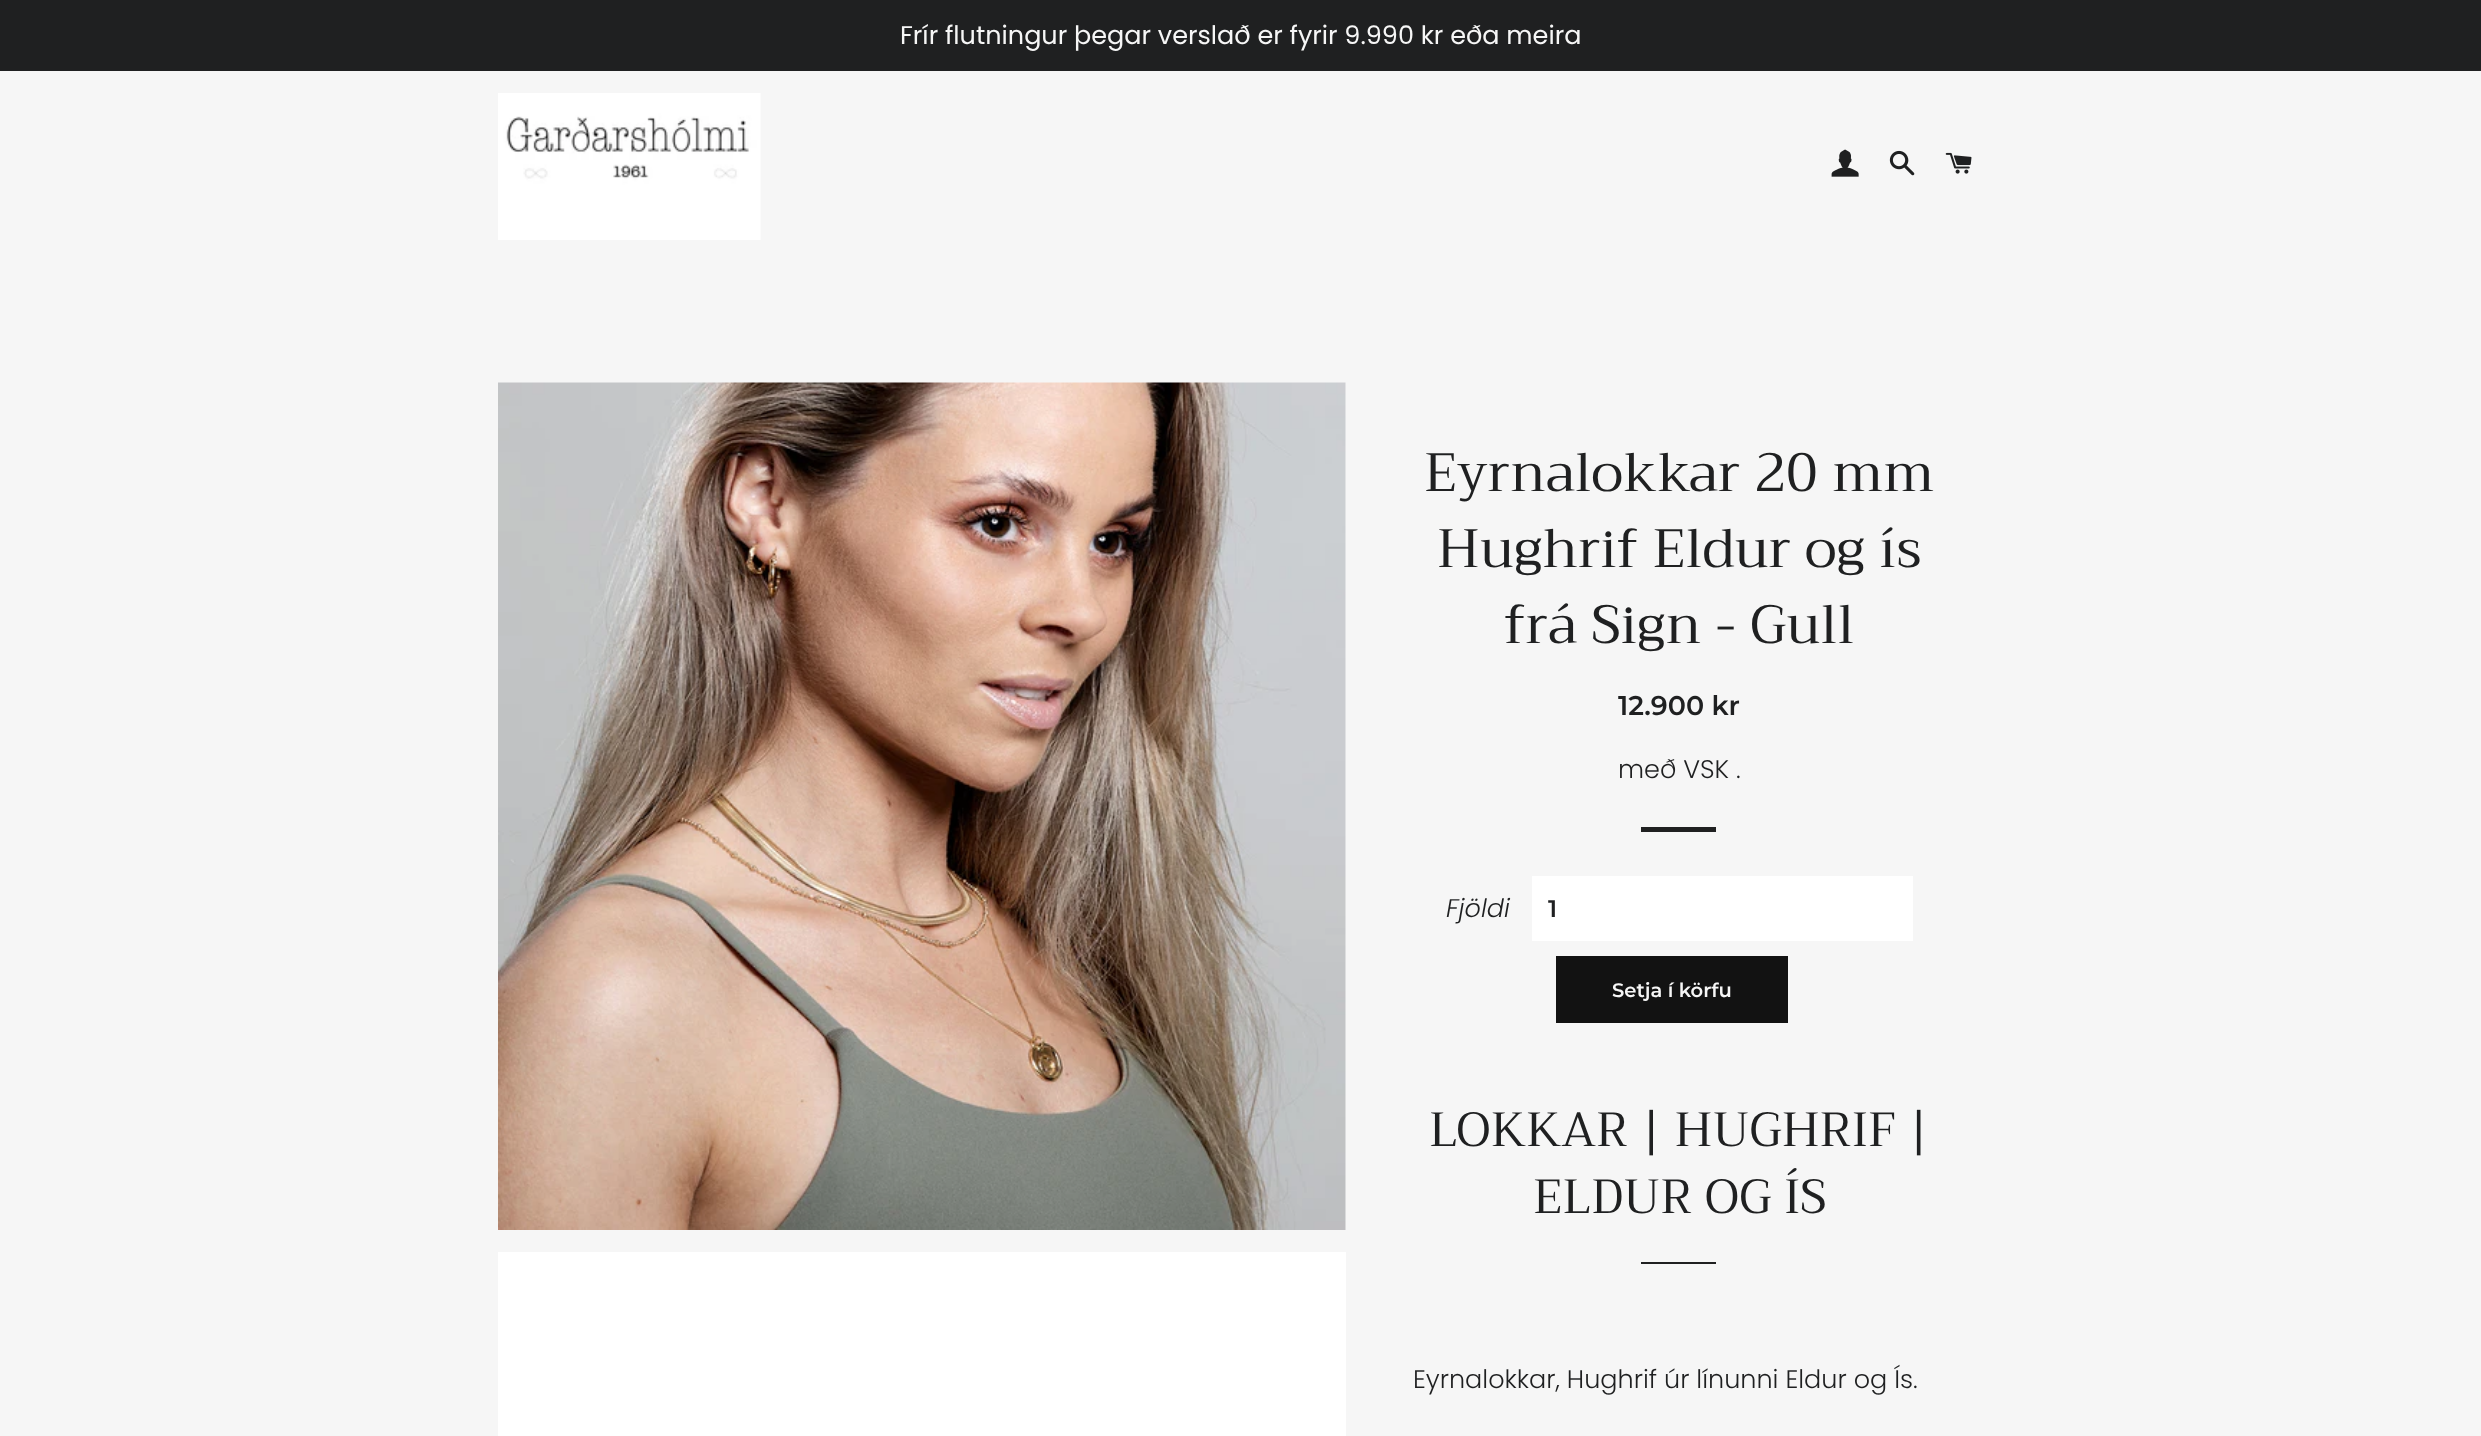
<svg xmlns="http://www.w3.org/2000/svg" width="2481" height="1436">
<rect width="100%" height="100%" fill="#f6f6f6"/>
<rect width="2481" height="71" fill="#1f2021"/>
<text x="900" y="44" style="font-family:Poppins;font-size:25.5px;fill:#f6f6f6">Frír flutningur þegar verslað er fyrir 9.990 kr eða meira</text>
<image x="498" y="93" width="263" height="147" href="media/1.png"/>
<image x="1831" y="149" width="28" height="28" href="media/2.png"/>
<image x="1889" y="150" width="26" height="26" href="media/3.png"/>
<image x="1945" y="152" width="27" height="22" href="media/4.png"/>
<image x="498" y="382" width="848" height="848" href="media/5.png"/>
<rect x="498" y="1252" width="848" height="184" fill="#fff"/>
<text x="1424" y="491" style="font-family:Trirong;font-size:54px;fill:#1f2021">Eyrnalokkar 20 mm</text>
<text x="1437" y="567" style="font-family:Trirong;font-size:54px;fill:#1f2021">Hughrif Eldur og ís</text>
<text x="1504" y="643" style="font-family:Trirong;font-size:54px;fill:#1f2021">frá Sign - Gull</text>
<text x="1618" y="715" style="font-family:Montserrat;font-size:27px;font-weight:600;fill:#1f2021">12.900 kr</text>
<text x="1618" y="778" style="font-family:Poppins;font-size:25.5px;font-weight:300;fill:#1f2021">með VSK .</text>
<rect x="1641" y="827" width="75" height="5" fill="#1f2021"/>
<text x="1446" y="917" style="font-family:Poppins;font-size:25.5px;font-weight:300;font-style:italic;fill:#1f2021">Fjöldi</text>
<rect x="1532" y="876" width="381" height="65" fill="#fff"/>
<text x="1548" y="917" style="font-family:Montserrat;font-size:24px;font-weight:600;fill:#1f2021">1</text>
<rect x="1556" y="956" width="232" height="67" fill="#121212"/>
<text x="1612" y="997" style="font-family:Montserrat;font-size:19.5px;font-weight:600;fill:#f6f6f6">Setja í körfu</text>
<text x="1429" y="1146" style="font-family:Trirong;font-size:48px;fill:#1f2021">LOKKAR | HUGHRIF |</text>
<text x="1533" y="1213" style="font-family:Trirong;font-size:48px;fill:#1f2021">ELDUR OG ÍS</text>
<rect x="1641" y="1262" width="75" height="2" fill="#1f2021"/>
<text x="1413" y="1388" style="font-family:Poppins;font-size:25.5px;font-weight:300;fill:#1f2021">Eyrnalokkar, Hughrif úr línunni Eldur og Ís.</text>
</svg>
